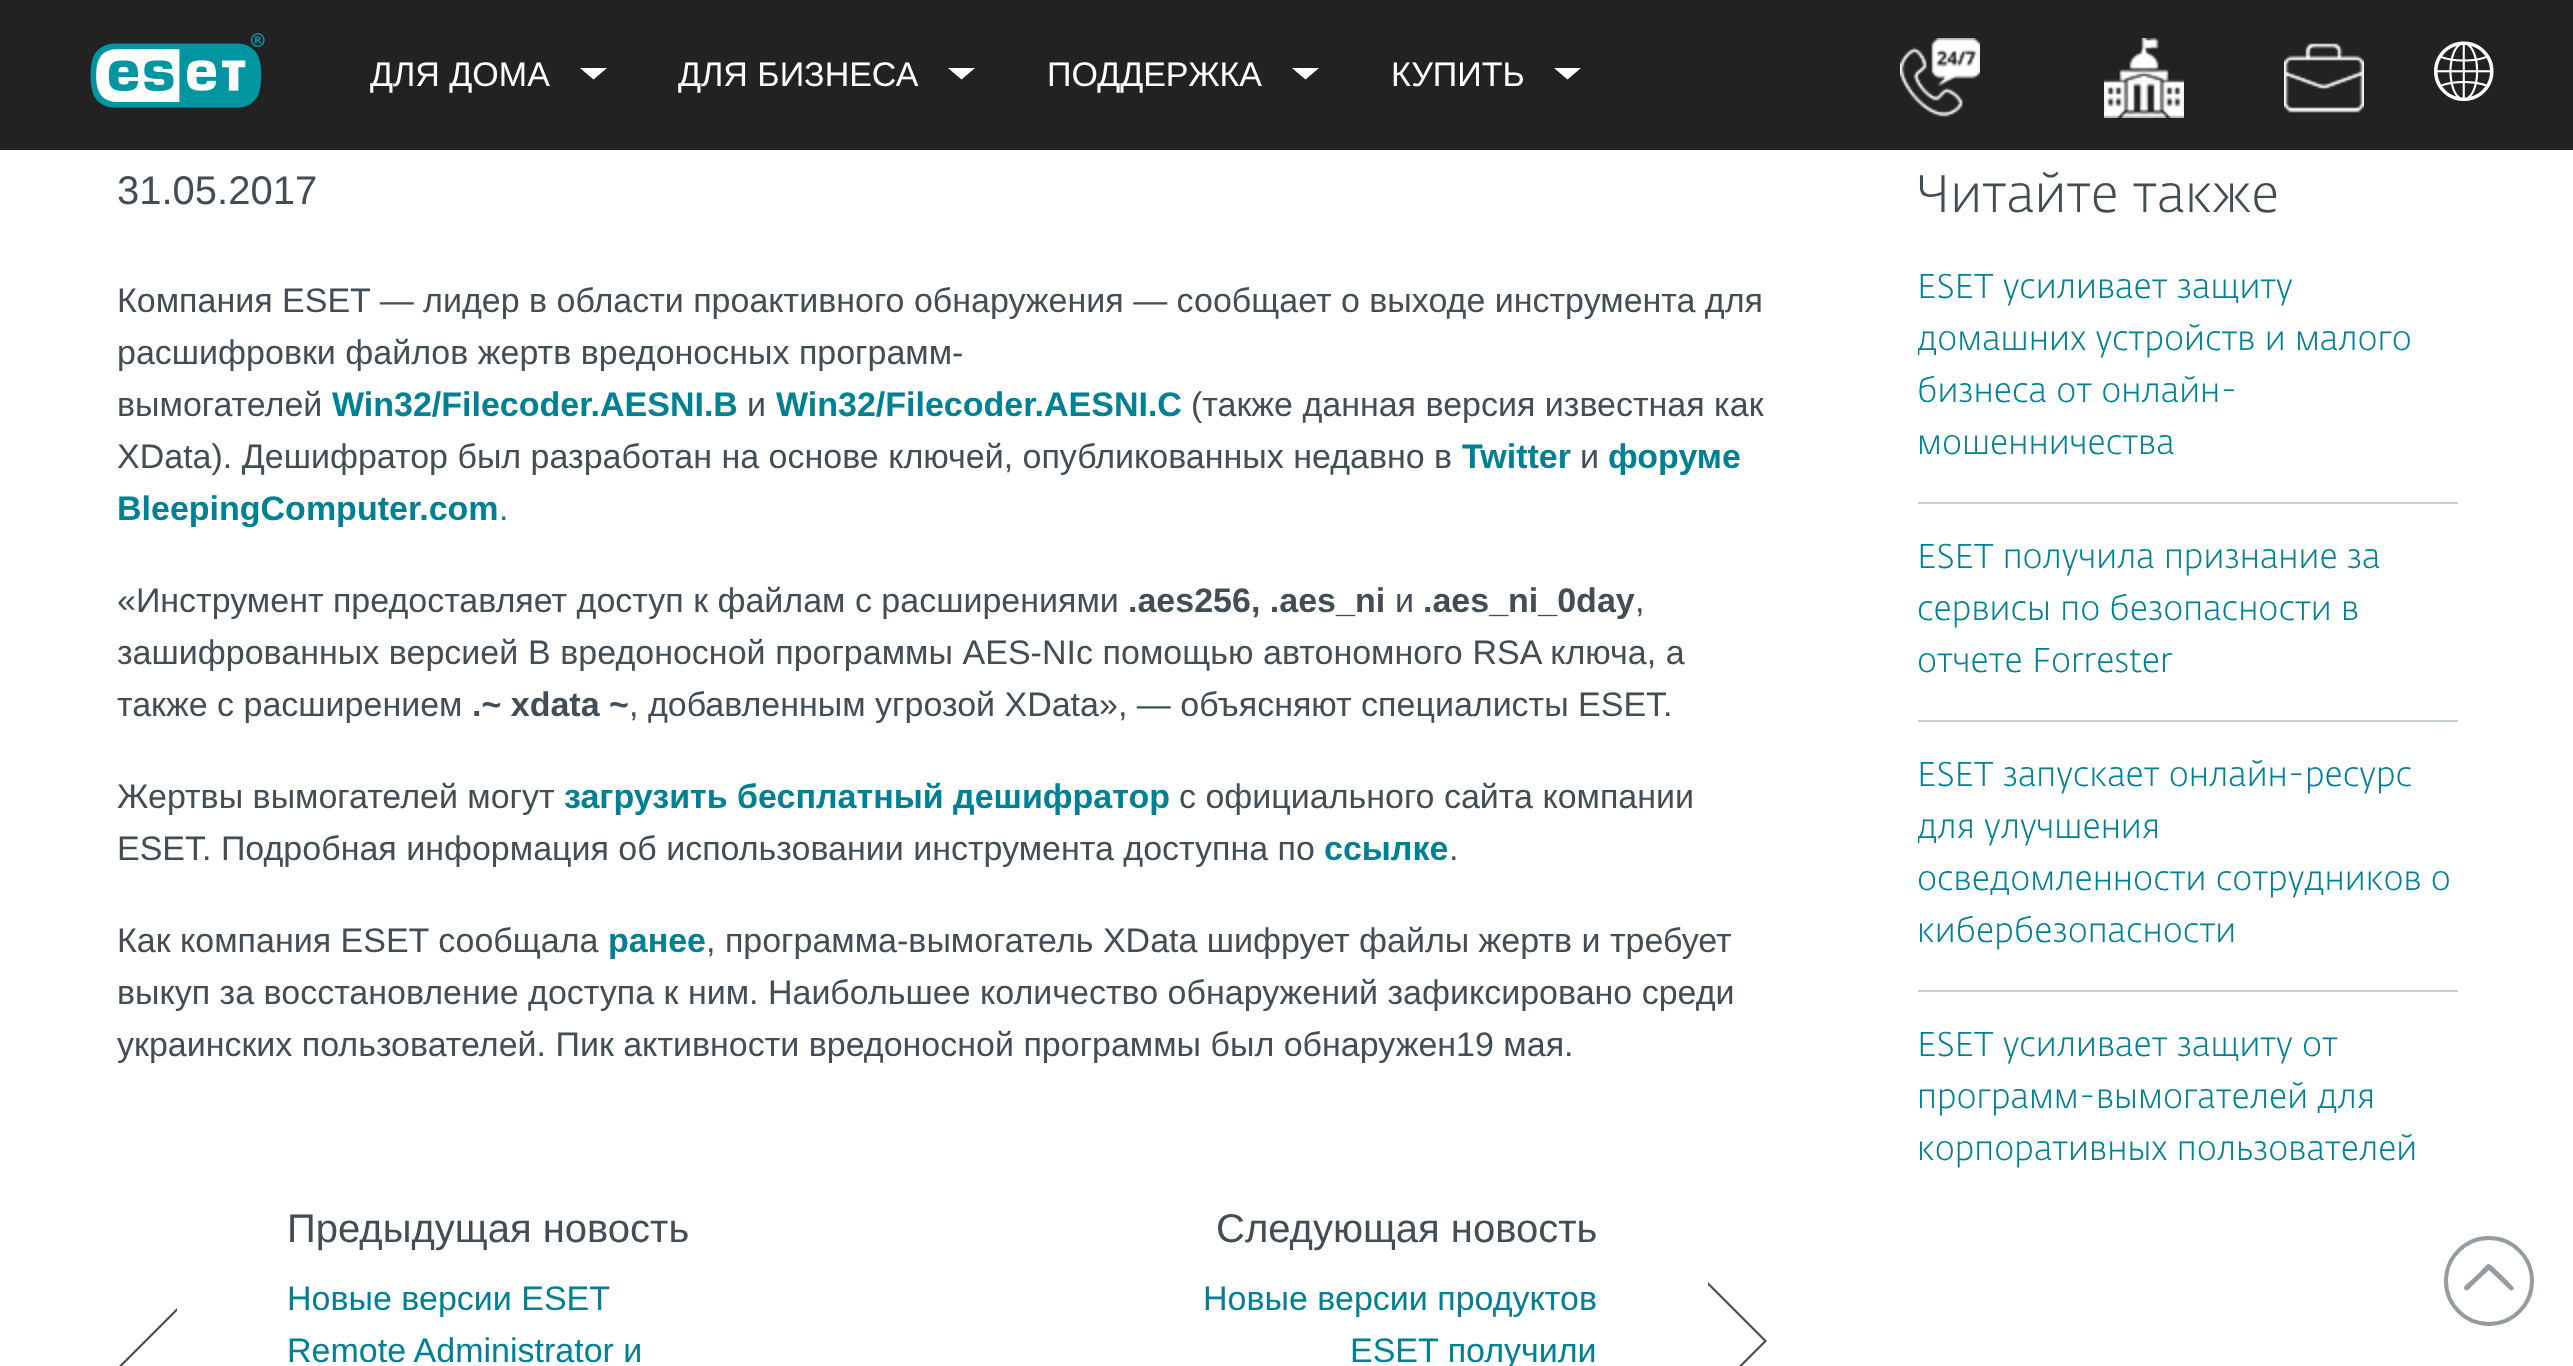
<svg xmlns="http://www.w3.org/2000/svg" width="2573" height="1366">
<defs>
<clipPath id="clip1"><rect x="1918" y="264" width="540" height="238"/></clipPath>
<clipPath id="clip2"><rect x="1918" y="722" width="540" height="268"/></clipPath>
</defs>
<rect width="100%" height="100%" fill="#fff"/>
<rect width="2573" height="150" fill="#222"/>
<image x="90" y="33" width="175" height="75" href="media/1.png"/>
<text x="370" y="86" style="font-family:Liberation Sans;font-size:34px;fill:#fff">ДЛЯ ДОМА</text>
<path d="M607 68l-13.5 11.5l-13.5-11.5z" fill="#fff"/>
<text x="678" y="86" style="font-family:Liberation Sans;font-size:34px;fill:#fff">ДЛЯ БИЗНЕСА</text>
<path d="M975 68l-13.5 11.5l-13.5-11.5z" fill="#fff"/>
<text x="1047" y="86" style="font-family:Liberation Sans;font-size:34px;fill:#fff">ПОДДЕРЖКА</text>
<path d="M1319 68l-13.5 11.5l-13.5-11.5z" fill="#fff"/>
<text x="1391" y="86" style="font-family:Liberation Sans;font-size:34px;fill:#fff">КУПИТЬ</text>
<path d="M1581 68l-13.5 11.5l-13.5-11.5z" fill="#fff"/>
<image x="1900" y="38" width="80" height="79" href="media/2.png"/>
<image x="2104" y="38" width="80" height="80" href="media/3.png"/>
<image x="2284" y="43" width="80" height="70" href="media/4.png"/>
<image x="2434" y="41" width="60" height="60" href="media/5.png"/>
<text x="117" y="204" style="font-family:Liberation Sans;font-size:40px;fill:#424d56">31.05.2017</text>
<text x="117" y="312" style="font-family:Liberation Sans;font-size:34px;fill:#424d56">Компания ESET — лидер в области проактивного обнаружения — сообщает о выходе инструмента для</text>
<text x="117" y="364" style="font-family:Liberation Sans;font-size:34px;fill:#424d56">расшифровки файлов жертв вредоносных программ-</text>
<text x="117" y="416" style="font-family:Liberation Sans;font-size:34px;fill:#424d56">вымогателей</text>
<text x="332" y="416" style="font-family:Liberation Sans;font-size:34px;font-weight:bold;fill:#008193">Win32/Filecoder.AESNI.B</text>
<text x="747" y="416" style="font-family:Liberation Sans;font-size:34px;fill:#424d56">и</text>
<text x="776" y="416" style="font-family:Liberation Sans;font-size:34px;font-weight:bold;fill:#008193">Win32/Filecoder.AESNI.C</text>
<text x="1191" y="416" style="font-family:Liberation Sans;font-size:34px;fill:#424d56">(также данная версия известная как</text>
<text x="117" y="468" style="font-family:Liberation Sans;font-size:34px;fill:#424d56">XData). Дешифратор был разработан на основе ключей, опубликованных недавно в</text>
<text x="1462" y="468" style="font-family:Liberation Sans;font-size:34px;font-weight:bold;fill:#008193">Twitter</text>
<text x="1580" y="468" style="font-family:Liberation Sans;font-size:34px;fill:#424d56">и</text>
<text x="1608" y="468" style="font-family:Liberation Sans;font-size:34px;font-weight:bold;fill:#008193">форуме</text>
<text x="117" y="520" style="font-family:Liberation Sans;font-size:34px;font-weight:bold;fill:#008193">BleepingComputer.com</text>
<text x="499" y="520" style="font-family:Liberation Sans;font-size:34px;fill:#008193">.</text>
<text x="117" y="612" style="font-family:Liberation Sans;font-size:34px;fill:#424d56">«Инструмент предоставляет доступ к файлам с расширениями</text>
<text x="1128" y="612" style="font-family:Liberation Sans;font-size:34px;font-weight:bold;fill:#424d56">.aes256, .aes_ni</text>
<text x="1395" y="612" style="font-family:Liberation Sans;font-size:34px;fill:#424d56">и</text>
<text x="1423" y="612" style="font-family:Liberation Sans;font-size:34px;font-weight:bold;fill:#424d56">.aes_ni_0day</text>
<text x="1635" y="612" style="font-family:Liberation Sans;font-size:34px;fill:#424d56">,</text>
<text x="117" y="664" word-spacing="0.25" style="font-family:Liberation Sans;font-size:34px;fill:#424d56">зашифрованных версией B вредоносной программы AES-NIс помощью автономного RSA ключа, а</text>
<text x="117" y="716" style="font-family:Liberation Sans;font-size:34px;fill:#424d56">также с расширением</text>
<text x="472" y="716" style="font-family:Liberation Sans;font-size:34px;font-weight:bold;fill:#424d56">.~ xdata ~</text>
<text x="629" y="716" style="font-family:Liberation Sans;font-size:34px;fill:#424d56">, добавленным угрозой XData», — объясняют специалисты ESET.</text>
<text x="117" y="808" style="font-family:Liberation Sans;font-size:34px;fill:#424d56">Жертвы вымогателей могут</text>
<text x="564" y="808" style="font-family:Liberation Sans;font-size:34px;font-weight:bold;fill:#008193">загрузить бесплатный дешифратор</text>
<text x="1179" y="808" style="font-family:Liberation Sans;font-size:34px;fill:#424d56">с официального сайта компании</text>
<text x="117" y="860" style="font-family:Liberation Sans;font-size:34px;fill:#424d56">ESET. Подробная информация об использовании инструмента доступна по</text>
<text x="1324" y="860" style="font-family:Liberation Sans;font-size:34px;font-weight:bold;fill:#008193">ссылке</text>
<text x="1449" y="860" style="font-family:Liberation Sans;font-size:34px;fill:#424d56">.</text>
<text x="117" y="952" style="font-family:Liberation Sans;font-size:34px;fill:#424d56">Как компания ESET сообщала</text>
<text x="608" y="952" style="font-family:Liberation Sans;font-size:34px;font-weight:bold;fill:#008193">ранее</text>
<text x="706" y="952" style="font-family:Liberation Sans;font-size:34px;fill:#424d56">, программа-вымогатель XData шифрует файлы жертв и требует</text>
<text x="117" y="1004" style="font-family:Liberation Sans;font-size:34px;fill:#424d56">выкуп за восстановление доступа к ним. Наибольшее количество обнаружений зафиксировано среди</text>
<text x="117" y="1056" style="font-family:Liberation Sans;font-size:34px;fill:#424d56">украинских пользователей. Пик активности вредоносной программы был обнаружен19 мая.</text>
<text x="287" y="1242" style="font-family:Liberation Sans;font-size:40px;fill:#424d56">Предыдущая новость</text>
<path d="M118 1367l59-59v3l-56 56l56 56v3z" fill="#424d56"/>
<text x="287" y="1310" style="font-family:Liberation Sans;font-size:34px;fill:#008193">Новые версии ESET</text>
<text x="287" y="1362" style="font-family:Liberation Sans;font-size:34px;fill:#008193">Remote Administrator и</text>
<text x="1216" y="1242" style="font-family:Liberation Sans;font-size:40px;fill:#424d56">Следующая новость</text>
<text x="1203" y="1310" style="font-family:Liberation Sans;font-size:34px;fill:#008193">Новые версии продуктов</text>
<text x="1350" y="1362" style="font-family:Liberation Sans;font-size:34px;fill:#008193">ESET получили</text>
<path d="M1767 1341l-59 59v-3l56-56l-56-56v-3z" fill="#424d56"/>
<text x="1917" y="212" style="font-family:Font;font-size:52px;font-weight:300;fill:#424d56">Читайте также</text>
<text x="1917" y="298" style="font-family:Font;font-size:34px;font-weight:300;fill:#008193">ESET усиливает защиту</text>
<g clip-path="url(#clip1)">
<text x="1917" y="350" style="font-family:Font;font-size:34px;font-weight:300;fill:#008193">домашних устройств и малого</text>
</g>
<text x="1917" y="402" style="font-family:Font;font-size:34px;font-weight:300;fill:#008193">бизнеса от онлайн-</text>
<text x="1917" y="454" style="font-family:Font;font-size:34px;font-weight:300;fill:#008193">мошенничества</text>
<rect x="1918" y="502" width="540" height="2" fill="#c6cfd4"/>
<text x="1917" y="568" style="font-family:Font;font-size:34px;font-weight:300;fill:#008193">ESET получила признание за</text>
<text x="1917" y="620" style="font-family:Font;font-size:34px;font-weight:300;fill:#008193">сервисы по безопасности в</text>
<text x="1917" y="672" style="font-family:Font;font-size:34px;font-weight:300;fill:#008193">отчете Forrester</text>
<rect x="1918" y="720" width="540" height="2" fill="#c6cfd4"/>
<text x="1917" y="786" style="font-family:Font;font-size:34px;font-weight:300;fill:#008193">ESET запускает онлайн-ресурс</text>
<g clip-path="url(#clip2)">
<text x="1917" y="838" style="font-family:Font;font-size:34px;font-weight:300;fill:#008193">для улучшения</text>
</g>
<text x="1917" y="890" style="font-family:Font;font-size:34px;font-weight:300;fill:#008193">осведомленности сотрудников о</text>
<text x="1917" y="942" style="font-family:Font;font-size:34px;font-weight:300;fill:#008193">кибербезопасности</text>
<rect x="1918" y="990" width="540" height="2" fill="#c6cfd4"/>
<text x="1917" y="1056" style="font-family:Font;font-size:34px;font-weight:300;fill:#008193">ESET усиливает защиту от</text>
<text x="1917" y="1108" style="font-family:Font;font-size:34px;font-weight:300;fill:#008193">программ-вымогателей для</text>
<text x="1917" y="1160" style="font-family:Font;font-size:34px;font-weight:300;fill:#008193">корпоративных пользователей</text>
<circle cx="2489" cy="1281" r="43" fill="none" stroke="#949ca1" stroke-width="4"/>
<path d="M2489 1264c2 0 25 23 25 24c0 2-3 3-4 2l-21-20l-17 16c-2 2-5 6-7 4c-3-3 2-6 3-7l12-11c1-1 6-8 9-8z" fill="#949ca1"/>
</svg>
